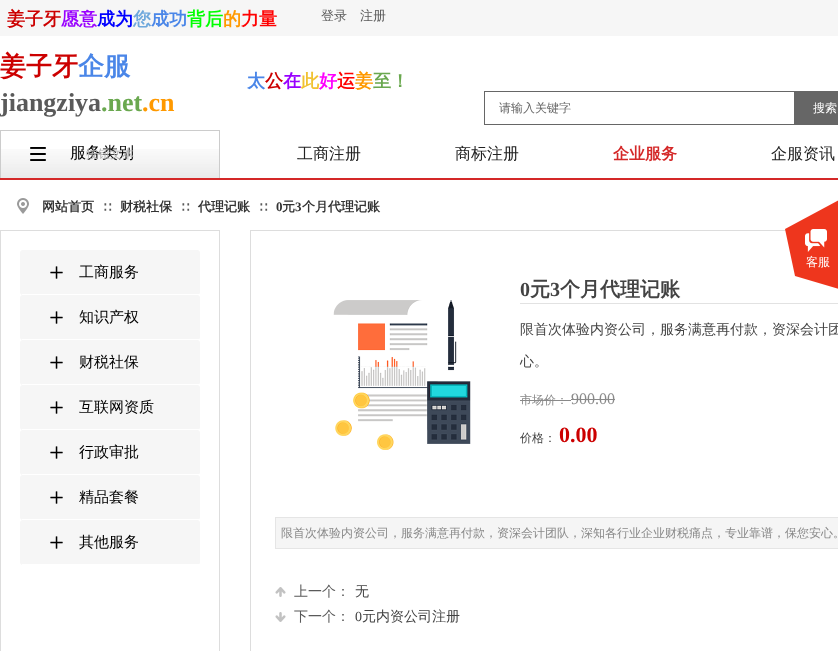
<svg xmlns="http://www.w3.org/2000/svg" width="838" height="651">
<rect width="100%" height="100%" fill="#fff"/>
<rect width="838" height="36" fill="#f6f6f6"/>
<text x="7" y="25" style="font-family:WenQuanYi Zen Hei;font-size:18px;font-weight:bold;fill:#c00">姜子牙</text>
<text x="61" y="25" style="font-family:WenQuanYi Zen Hei;font-size:18px;font-weight:bold;fill:#90f">愿意</text>
<text x="97" y="25" style="font-family:WenQuanYi Zen Hei;font-size:18px;font-weight:bold;fill:#00f">成为</text>
<text x="133" y="25" style="font-family:WenQuanYi Zen Hei;font-size:18px;font-weight:bold;fill:#6fa8dc">您</text>
<text x="151" y="25" style="font-family:WenQuanYi Zen Hei;font-size:18px;font-weight:bold;fill:#4a86e8">成功</text>
<text x="187" y="25" style="font-family:WenQuanYi Zen Hei;font-size:18px;font-weight:bold;fill:#0f0">背后</text>
<text x="223" y="25" style="font-family:WenQuanYi Zen Hei;font-size:18px;font-weight:bold;fill:#f90">的</text>
<text x="241" y="25" style="font-family:WenQuanYi Zen Hei;font-size:18px;font-weight:bold;fill:#f00">力量</text>
<text x="321" y="20" style="font-family:WenQuanYi Zen Hei;font-size:13px;font-weight:500;fill:#5a5a5a">登录</text>
<text x="360" y="20" style="font-family:WenQuanYi Zen Hei;font-size:13px;font-weight:500;fill:#5a5a5a">注册</text>
<text x="0" y="75" style="font-family:WenQuanYi Zen Hei;font-size:26px;font-weight:bold;fill:#c00">姜子牙</text>
<text x="78" y="75" style="font-family:WenQuanYi Zen Hei;font-size:26px;font-weight:bold;fill:#4a86e8">企服</text>
<text x="0" y="111" style="font-family:Liberation Serif;font-size:26px;font-weight:bold;fill:#5a5a5a">jiangziya</text>
<text x="101" y="111" style="font-family:Liberation Serif;font-size:26px;font-weight:bold;fill:#6aa84f">.net</text>
<text x="142" y="111" style="font-family:Liberation Serif;font-size:26px;font-weight:bold;fill:#f90">.cn</text>
<text x="247" y="87" style="font-family:WenQuanYi Zen Hei;font-size:18px;font-weight:bold;fill:#4a86e8">太</text>
<text x="265" y="87" style="font-family:WenQuanYi Zen Hei;font-size:18px;font-weight:bold;fill:#c00">公</text>
<text x="283" y="87" style="font-family:WenQuanYi Zen Hei;font-size:18px;font-weight:bold;fill:#90f">在</text>
<text x="301" y="87" style="font-family:WenQuanYi Zen Hei;font-size:18px;font-weight:bold;fill:#f1c232">此</text>
<text x="319" y="87" style="font-family:WenQuanYi Zen Hei;font-size:18px;font-weight:bold;fill:#f0f">好</text>
<text x="337" y="87" style="font-family:WenQuanYi Zen Hei;font-size:18px;font-weight:bold;fill:#f00">运</text>
<text x="355" y="87" style="font-family:WenQuanYi Zen Hei;font-size:18px;font-weight:bold;fill:#f90">姜</text>
<text x="373" y="87" style="font-family:WenQuanYi Zen Hei;font-size:18px;font-weight:bold;fill:#6aa84f">至！</text>
<rect x="484.5" y="91.5" width="310" height="33" fill="none" stroke="#666"/>
<text x="499" y="112" style="font-family:WenQuanYi Zen Hei;font-size:12px;font-weight:500;fill:#666">请输入关键字</text>
<rect x="795" y="91" width="43" height="34" fill="#666"/>
<text x="813" y="112" style="font-family:WenQuanYi Zen Hei;font-size:12px;font-weight:500;fill:#fff">搜索</text>
<image x="1" y="149" width="218" height="29" href="media/1.png"/>
<rect y="130" width="220" height="1" fill="#ccc"/>
<rect x="219" y="130" width="1" height="48" fill="#ccc"/>
<rect y="130" width="1" height="48" fill="#ccc"/>
<image x="30" y="147" width="16" height="14" href="media/2.png"/>
<text x="70" y="158" style="font-family:WenQuanYi Zen Hei;font-size:16px;font-weight:500;fill:#000">服务类别</text>
<text x="86" y="158" style="font-family:WenQuanYi Zen Hei;font-size:12px;font-weight:500;fill:#b3b3b3">按钮文本</text>
<text x="297" y="159" style="font-family:WenQuanYi Zen Hei;font-size:16px;font-weight:500;fill:#222">工商注册</text>
<text x="455" y="159" style="font-family:WenQuanYi Zen Hei;font-size:16px;font-weight:500;fill:#222">商标注册</text>
<text x="613" y="159" style="font-family:WenQuanYi Zen Hei;font-size:16px;font-weight:bold;fill:#d42828">企业服务</text>
<text x="771" y="159" style="font-family:WenQuanYi Zen Hei;font-size:16px;font-weight:500;fill:#222">企服资讯</text>
<rect y="178" width="838" height="2" fill="#d42828"/>
<image x="17" y="198" width="12" height="16" href="media/3.png"/>
<text x="42" y="211" style="font-family:WenQuanYi Zen Hei;font-size:13px;font-weight:bold;fill:#333">网站首页</text>
<text x="102" y="211" style="font-family:WenQuanYi Zen Hei;font-size:12px;font-weight:500;fill:#5a5a5a">∷</text>
<text x="120" y="211" style="font-family:WenQuanYi Zen Hei;font-size:13px;font-weight:bold;fill:#333">财税社保</text>
<text x="180" y="211" style="font-family:WenQuanYi Zen Hei;font-size:12px;font-weight:500;fill:#5a5a5a">∷</text>
<text x="198" y="211" style="font-family:WenQuanYi Zen Hei;font-size:13px;font-weight:bold;fill:#333">代理记账</text>
<text x="258" y="211" style="font-family:WenQuanYi Zen Hei;font-size:12px;font-weight:500;fill:#5a5a5a">∷</text>
<text x="276" y="211" style="font-family:Liberation Serif;font-size:13px;font-weight:bold;fill:#333">0</text>
<text x="282" y="211" style="font-family:WenQuanYi Zen Hei;font-size:13px;font-weight:bold;fill:#333">元</text>
<text x="295" y="211" style="font-family:Liberation Serif;font-size:13px;font-weight:bold;fill:#333">3</text>
<text x="302" y="211" style="font-family:WenQuanYi Zen Hei;font-size:13px;font-weight:bold;fill:#333">个月代理记账</text>
<rect x="0.5" y="230.5" width="219" height="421" fill="none" stroke="#ddd"/>
<rect x="20" y="250" width="180" height="45" rx="3" fill="#f6f6f6"/>
<rect x="22" y="294" width="177" height="1" fill="#fff"/>
<image x="50" y="266" width="13" height="13" href="media/4.png"/>
<text x="79" y="277" style="font-family:WenQuanYi Zen Hei;font-size:15px;font-weight:500;fill:#000">工商服务</text>
<rect x="20" y="295" width="180" height="45" rx="3" fill="#f6f6f6"/>
<rect x="22" y="339" width="177" height="1" fill="#fff"/>
<image x="50" y="311" width="13" height="13" href="media/4.png"/>
<text x="79" y="322" style="font-family:WenQuanYi Zen Hei;font-size:15px;font-weight:500;fill:#000">知识产权</text>
<rect x="20" y="340" width="180" height="45" rx="3" fill="#f6f6f6"/>
<rect x="22" y="384" width="177" height="1" fill="#fff"/>
<image x="50" y="356" width="13" height="13" href="media/4.png"/>
<text x="79" y="367" style="font-family:WenQuanYi Zen Hei;font-size:15px;font-weight:500;fill:#000">财税社保</text>
<rect x="20" y="385" width="180" height="45" rx="3" fill="#f6f6f6"/>
<rect x="22" y="429" width="177" height="1" fill="#fff"/>
<image x="50" y="401" width="13" height="13" href="media/4.png"/>
<text x="79" y="412" style="font-family:WenQuanYi Zen Hei;font-size:15px;font-weight:500;fill:#000">互联网资质</text>
<rect x="20" y="430" width="180" height="45" rx="3" fill="#f6f6f6"/>
<rect x="22" y="474" width="177" height="1" fill="#fff"/>
<image x="50" y="446" width="13" height="13" href="media/4.png"/>
<text x="79" y="457" style="font-family:WenQuanYi Zen Hei;font-size:15px;font-weight:500;fill:#000">行政审批</text>
<rect x="20" y="475" width="180" height="45" rx="3" fill="#f6f6f6"/>
<rect x="22" y="519" width="177" height="1" fill="#fff"/>
<image x="50" y="491" width="13" height="13" href="media/4.png"/>
<text x="79" y="502" style="font-family:WenQuanYi Zen Hei;font-size:15px;font-weight:500;fill:#000">精品套餐</text>
<rect x="20" y="520" width="180" height="45" rx="3" fill="#f6f6f6"/>
<rect x="22" y="564" width="177" height="1" fill="#fff"/>
<image x="50" y="536" width="13" height="13" href="media/4.png"/>
<text x="79" y="547" style="font-family:WenQuanYi Zen Hei;font-size:15px;font-weight:500;fill:#000">其他服务</text>
<rect x="250.5" y="230.5" width="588" height="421" fill="none" stroke="#ddd"/>
<image x="333" y="300" width="138" height="150" href="media/5.png"/>
<rect x="520" y="303" width="318" height="1" fill="#e2e2e2"/>
<text x="520" y="296" style="font-family:Liberation Serif;font-size:20px;font-weight:bold;fill:#434343">0</text>
<text x="530" y="296" style="font-family:WenQuanYi Zen Hei;font-size:20px;font-weight:bold;fill:#434343">元</text>
<text x="550" y="296" style="font-family:Liberation Serif;font-size:20px;font-weight:bold;fill:#434343">3</text>
<text x="560" y="296" style="font-family:WenQuanYi Zen Hei;font-size:20px;font-weight:bold;fill:#434343">个月代理记账</text>
<text x="520" y="334" style="font-family:WenQuanYi Zen Hei;font-size:14px;font-weight:500;fill:#434343">限首次体验内资公司，服务满意再付款，资深会计团</text>
<text x="520" y="366" style="font-family:WenQuanYi Zen Hei;font-size:14px;font-weight:500;fill:#434343">心。</text>
<text x="520" y="404" style="font-family:WenQuanYi Zen Hei;font-size:12px;font-weight:500;fill:#898989">市场价：</text>
<rect x="520" y="400" width="51" height="1" fill="#898989"/>
<text x="571" y="404" style="font-family:Liberation Serif;font-size:16px;fill:#898989">900.00</text>
<rect x="571" y="399" width="44" height="1" fill="#898989"/>
<text x="520" y="442" style="font-family:WenQuanYi Zen Hei;font-size:12px;font-weight:500;fill:#434343">价格：</text>
<text x="559" y="442" style="font-family:Liberation Serif;font-size:22px;font-weight:bold;fill:#c00">0.00</text>
<rect x="275.5" y="517.5" width="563" height="31" fill="#f5f5f5" stroke="#e5e5e5"/>
<text x="281" y="537" style="font-family:WenQuanYi Zen Hei;font-size:12px;font-weight:500;fill:#898989">限首次体验内资公司，服务满意再付款，资深会计团队，深知各行业企业财税痛点，专业靠谱，保您安心。</text>
<rect x="275" y="587" width="11" height="10" fill="#c2c2c2"/>
<image x="275" y="587" width="11" height="10" href="media/6.png"/>
<text x="294" y="596" style="font-family:WenQuanYi Zen Hei;font-size:14px;font-weight:500;fill:#5a5a5a">上一个：</text>
<text x="355" y="596" style="font-family:WenQuanYi Zen Hei;font-size:14px;font-weight:500;fill:#434343">无</text>
<rect x="275" y="612" width="11" height="10" fill="#c2c2c2"/>
<image x="275" y="612" width="11" height="10" href="media/7.png"/>
<text x="294" y="621" style="font-family:WenQuanYi Zen Hei;font-size:14px;font-weight:500;fill:#5a5a5a">下一个：</text>
<text x="355" y="621" style="font-family:Liberation Serif;font-size:14px;fill:#434343">0</text>
<text x="362" y="621" style="font-family:WenQuanYi Zen Hei;font-size:14px;font-weight:500;fill:#434343">元内资公司注册</text>
<image x="785" y="200" width="53" height="89" href="media/8.png"/>
<text x="806" y="266" style="font-family:WenQuanYi Zen Hei;font-size:12px;font-weight:500;fill:#fff">客服</text>
</svg>
